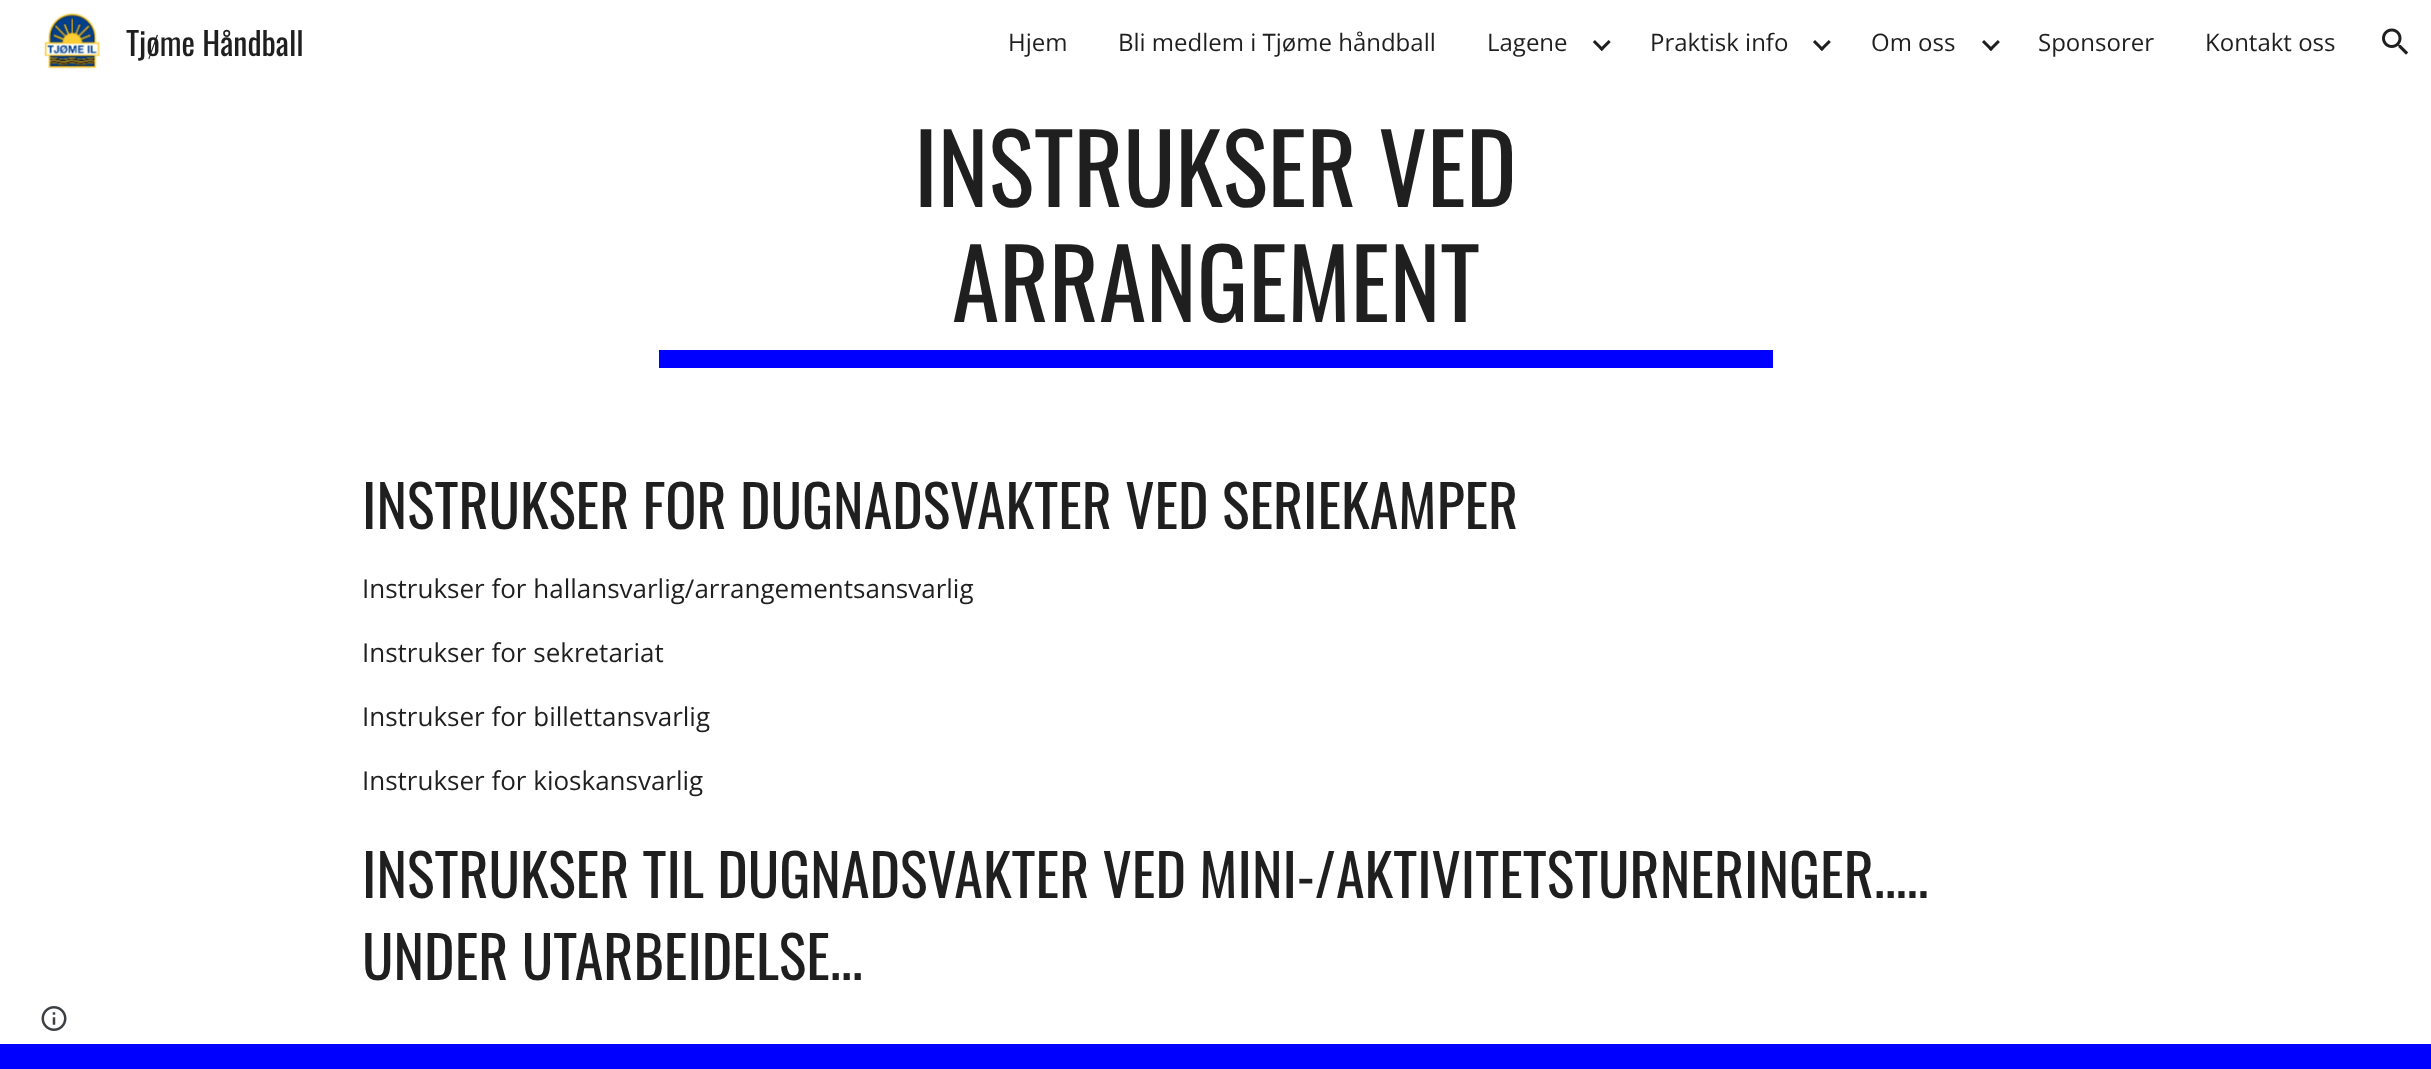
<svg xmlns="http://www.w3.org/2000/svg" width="2431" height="1069">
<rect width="100%" height="100%" fill="#fff"/>
<image x="44" y="12" width="56" height="57" href="media/1.png"/>
<text x="126" y="56" style="font-family:Oswald;font-size:32px;fill:#1f1f1f">Tjøme Håndball</text>
<text x="1008" y="51" style="font-family:Open Sans;font-size:24px;fill:#1f1f1f">Hjem</text>
<text x="1118" y="51" style="font-family:Open Sans;font-size:24px;fill:#1f1f1f">Bli medlem i Tjøme håndball</text>
<text x="1487" y="51" style="font-family:Open Sans;font-size:24px;fill:#1f1f1f">Lagene</text>
<image x="1592" y="40" width="19" height="11" href="media/2.png"/>
<text x="1650" y="51" style="font-family:Open Sans;font-size:24px;fill:#1f1f1f">Praktisk info</text>
<image x="1813" y="40" width="18" height="11" href="media/3.png"/>
<text x="1871" y="51" style="font-family:Open Sans;font-size:24px;fill:#1f1f1f">Om oss</text>
<image x="1982" y="40" width="18" height="11" href="media/4.png"/>
<text x="2038" y="51" style="font-family:Open Sans;font-size:24px;fill:#1f1f1f">Sponsorer</text>
<text x="2205" y="51" style="font-family:Open Sans;font-size:24px;fill:#1f1f1f">Kontakt oss</text>
<image x="2382" y="28" width="27" height="27" href="media/5.png"/>
<text x="914" y="207" style="font-family:Oswald;font-size:96px;fill:#1f1f1f">INSTRUKSER VED</text>
<text x="952" y="322" style="font-family:Oswald;font-size:96px;fill:#1f1f1f">ARRANGEMENT</text>
<rect x="659" y="350" width="1114" height="18" fill="#00f"/>
<text x="362" y="529" style="font-family:Oswald;font-size:58px;fill:#1f1f1f">INSTRUKSER FOR DUGNADSVAKTER VED SERIEKAMPER</text>
<text x="362" y="598" style="font-family:Open Sans;font-size:26px;fill:#1f1f1f">Instrukser for hallansvarlig/arrangementsansvarlig</text>
<text x="362" y="662" style="font-family:Open Sans;font-size:26px;fill:#1f1f1f">Instrukser for sekretariat</text>
<text x="362" y="726" style="font-family:Open Sans;font-size:26px;fill:#1f1f1f">Instrukser for billettansvarlig</text>
<text x="362" y="790" style="font-family:Open Sans;font-size:26px;fill:#1f1f1f">Instrukser for kioskansvarlig</text>
<text x="362" y="898" style="font-family:Oswald;font-size:58px;fill:#1f1f1f">INSTRUKSER TIL DUGNADSVAKTER VED MINI-/AKTIVITETSTURNERINGER.....</text>
<text x="362" y="980" style="font-family:Oswald;font-size:58px;fill:#1f1f1f">UNDER UTARBEIDELSE...</text>
<image x="41" y="1006" width="26" height="25" href="media/6.png"/>
<rect y="1044" width="2431" height="25" fill="#00f"/>
</svg>
